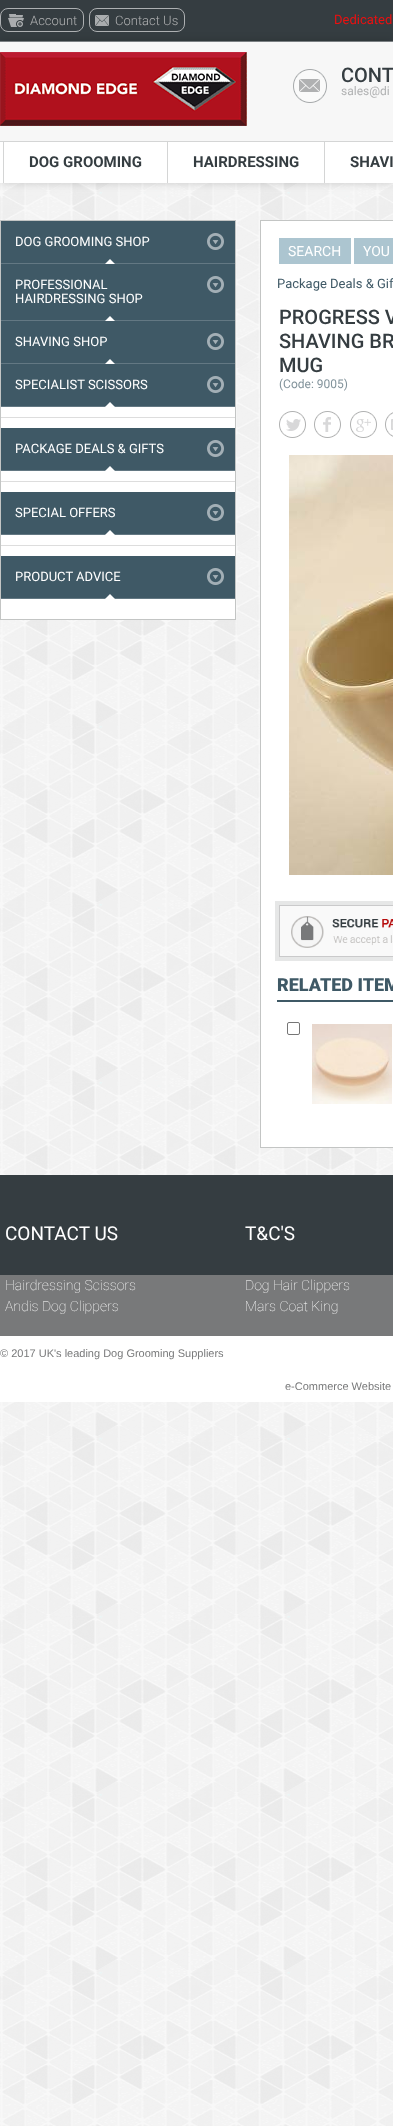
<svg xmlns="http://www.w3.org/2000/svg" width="393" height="2126">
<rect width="100%" height="100%" fill="#f8f8f8"/>
<image x="0" y="183" width="393" height="1943" href="media/1.png"/>
<rect width="393" height="41" fill="#353d41"/>
<rect y="41" width="393" height="142" fill="#0000002b" filter="blur(4.5px)"/>
<rect y="142" width="393" height="41" fill="#fff"/>
<rect y="41" width="393" height="1" fill="#7b8083"/>
<rect x="0.5" y="8.5" width="83" height="23" rx="7.5" fill="none" stroke="#adb0b2"/>
<image x="8" y="14" width="16" height="13" href="media/2.png"/>
<text x="30" y="25" style="font-family:Roboto;font-size:13px;font-weight:300;fill:#b0b1b2">Account</text>
<rect x="89.5" y="8.5" width="95" height="23" rx="7.5" fill="none" stroke="#adb0b2"/>
<image x="95" y="15" width="14" height="11" href="media/3.png"/>
<text x="115" y="25" style="font-family:Roboto;font-size:13px;font-weight:300;fill:#b0b1b2">Contact Us</text>
<text x="334" y="24" style="font-family:Roboto;font-size:13px;fill:#eb1010">Dedicated</text>
<rect y="42" width="393" height="99" fill="#f7f7f7"/>
<image x="0" y="52" width="247" height="74" href="media/4.png"/>
<image x="293" y="69" width="34" height="34" href="media/5.png"/>
<text x="341" y="82" style="font-family:Roboto;font-size:20px;font-weight:500;fill:#353d41">CONT</text>
<text x="341" y="95" style="font-family:Roboto;font-size:12px;fill:#b0b1b2">sales@di</text>
<rect x="3" y="142" width="1" height="41" fill="#d4d5d5"/>
<rect x="167" y="142" width="1" height="41" fill="#d4d5d5"/>
<text x="29" y="167" style="font-family:Roboto;font-size:15px;font-weight:bold;fill:#353d41">DOG GROOMING</text>
<rect x="324" y="142" width="1" height="41" fill="#d4d5d5"/>
<text x="193" y="167" style="font-family:Roboto;font-size:15px;font-weight:bold;fill:#353d41">HAIRDRESSING</text>
<text x="350" y="167" style="font-family:Roboto;font-size:15px;font-weight:bold;fill:#353d41">SHAVI</text>
<rect y="141" width="393" height="1" fill="#d4d5d5"/>
<rect x="1" y="407" width="234" height="212" fill="#fff"/>
<rect x="0.5" y="220.5" width="235" height="399" fill="none" stroke="#c3c5c4"/>
<rect x="1" y="221" width="234" height="42" fill="#3f5966"/>
<image x="207" y="233" width="17" height="17" href="media/6.png"/>
<rect x="1" y="263" width="234" height="1" fill="#637883"/>
<text x="15" y="246" style="font-family:Roboto;font-size:13px;fill:#fff">DOG GROOMING SHOP</text>
<path d="M115 264h-10l5-5z" fill="#fff"/>
<rect x="1" y="264" width="234" height="56" fill="#3f5966"/>
<image x="207" y="276" width="17" height="17" href="media/6.png"/>
<rect x="1" y="320" width="234" height="1" fill="#637883"/>
<text x="15" y="289" style="font-family:Roboto;font-size:13px;fill:#fff">PROFESSIONAL</text>
<text x="15" y="303" style="font-family:Roboto;font-size:13px;fill:#fff">HAIRDRESSING SHOP</text>
<path d="M115 321h-10l5-5z" fill="#fff"/>
<rect x="1" y="321" width="234" height="42" fill="#3f5966"/>
<image x="207" y="333" width="17" height="17" href="media/6.png"/>
<rect x="1" y="363" width="234" height="1" fill="#637883"/>
<text x="15" y="346" style="font-family:Roboto;font-size:13px;fill:#fff">SHAVING SHOP</text>
<path d="M115 364h-10l5-5z" fill="#fff"/>
<rect x="1" y="364" width="234" height="42" fill="#3f5966"/>
<image x="207" y="376" width="17" height="17" href="media/6.png"/>
<rect x="1" y="406" width="234" height="1" fill="#637883"/>
<text x="15" y="389" style="font-family:Roboto;font-size:13px;fill:#fff">SPECIALIST SCISSORS</text>
<path d="M115 407h-10l5-5z" fill="#fff"/>
<rect x="1" y="417" width="234" height="1" fill="#ddd"/>
<rect x="1" y="428" width="234" height="42" fill="#3f5966"/>
<image x="207" y="440" width="17" height="17" href="media/6.png"/>
<rect x="1" y="470" width="234" height="1" fill="#637883"/>
<text x="15" y="453" style="font-family:Roboto;font-size:13px;fill:#fff">PACKAGE DEALS &amp; GIFTS</text>
<path d="M115 471h-10l5-5z" fill="#fff"/>
<rect x="1" y="481" width="234" height="1" fill="#ddd"/>
<rect x="1" y="492" width="234" height="42" fill="#3f5966"/>
<image x="207" y="504" width="17" height="17" href="media/6.png"/>
<rect x="1" y="534" width="234" height="1" fill="#637883"/>
<text x="15" y="517" style="font-family:Roboto;font-size:13px;fill:#fff">SPECIAL OFFERS</text>
<path d="M115 535h-10l5-5z" fill="#fff"/>
<rect x="1" y="545" width="234" height="1" fill="#ddd"/>
<rect x="1" y="556" width="234" height="42" fill="#3f5966"/>
<image x="207" y="568" width="17" height="17" href="media/6.png"/>
<rect x="1" y="598" width="234" height="1" fill="#637883"/>
<text x="15" y="581" style="font-family:Roboto;font-size:13px;fill:#fff">PRODUCT ADVICE</text>
<path d="M115 599h-10l5-5z" fill="#fff"/>
<rect x="260.5" y="220.5" width="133" height="927" fill="#fff" stroke="#c3c5c4"/>
<rect x="279" y="238" width="72" height="26" fill="#acc5d0"/>
<text x="288" y="256" style="font-family:Roboto;font-size:14px;fill:#fff">SEARCH</text>
<rect x="354" y="238" width="39" height="26" fill="#acc5d0"/>
<text x="363" y="256" style="font-family:Roboto;font-size:14px;fill:#fff">YOU</text>
<text x="277" y="288" style="font-family:Roboto;font-size:13px;fill:#3f5966">Package Deals &amp; Gif</text>
<text x="279" y="324" style="font-family:Roboto;font-size:20px;font-weight:500;fill:#353d41">PROGRESS V</text>
<text x="279" y="348" style="font-family:Roboto;font-size:20px;font-weight:500;fill:#353d41">SHAVING BR</text>
<text x="279" y="372" style="font-family:Roboto;font-size:20px;font-weight:500;fill:#353d41">MUG</text>
<text x="279" y="388" style="font-family:Roboto;font-size:12px;fill:#82939b">(Code: 9005)</text>
<image x="279" y="411" width="27" height="27" href="media/7.png"/>
<image x="314" y="411" width="27" height="27" href="media/8.png"/>
<image x="350" y="411" width="27" height="27" href="media/9.png"/>
<image x="385" y="412" width="8" height="25" href="media/10.png"/>
<image x="289" y="455" width="104" height="420" href="media/11.png"/>
<rect x="277" y="903" width="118" height="56" fill="none" stroke="#e6e7e7" stroke-width="4"/>
<rect x="279.5" y="905.5" width="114" height="51" fill="#f9f9f9" stroke="#cacacb"/>
<image x="291" y="916" width="102" height="32" href="media/12.png"/>
<rect x="277" y="1000" width="116" height="2" fill="#3f5966"/>
<text x="277" y="991" style="font-family:Roboto;font-size:18px;font-weight:900;fill:#3f5966">RELATED ITEM</text>
<rect x="287.5" y="1022.5" width="12" height="12" rx="1.5" fill="none" stroke="#767676"/>
<image x="312" y="1024" width="80" height="80" href="media/13.png"/>
<rect y="1175" width="393" height="100" fill="#353d41"/>
<text x="5" y="1240" style="font-family:Roboto;font-size:19px;fill:#fff">CONTACT US</text>
<text x="245" y="1240" style="font-family:Roboto;font-size:19px;fill:#fff">T&amp;C'S</text>
<rect y="1275" width="393" height="61" fill="#78797a"/>
<text x="5" y="1290" style="font-family:Roboto;font-size:14px;font-weight:100;fill:#fff">Hairdressing Scissors</text>
<text x="245" y="1290" style="font-family:Roboto;font-size:14px;font-weight:100;fill:#fff">Dog Hair Clippers</text>
<text x="5" y="1311" style="font-family:Roboto;font-size:14px;font-weight:100;fill:#fff">Andis Dog Clippers</text>
<text x="245" y="1311" style="font-family:Roboto;font-size:14px;font-weight:100;fill:#fff">Mars Coat King</text>
<rect y="1336" width="393" height="66" fill="#fff"/>
<text x="0" y="1357" style="font-family:Liberation Sans;font-size:11px;fill:#78797a">© 2017 UK's leading Dog Grooming Suppliers</text>
<text x="285" y="1390" style="font-family:Liberation Sans;font-size:11px;fill:#78797a">e-Commerce Website</text>
</svg>
